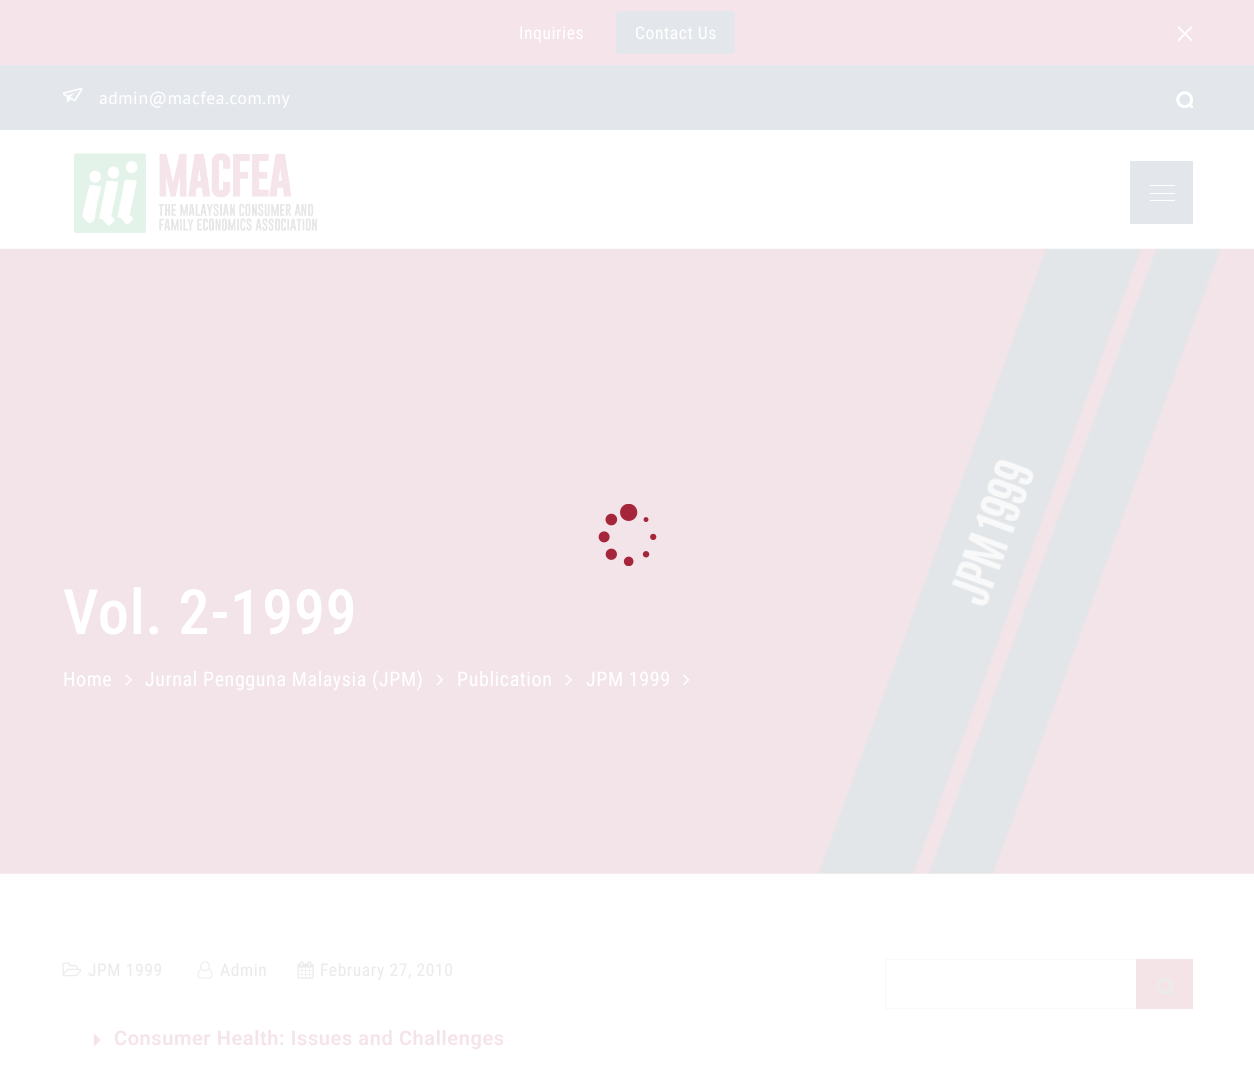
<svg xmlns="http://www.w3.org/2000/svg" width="1254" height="1068">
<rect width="100%" height="100%" fill="#fff"/>
<rect width="1254" height="65" fill="#f5e4e9"/>
<text x="519" y="39" style="font-family:Roboto Condensed;font-size:17.5px;letter-spacing:0.6px;fill:#fff">Inquiries</text>
<rect x="616" y="11" width="119" height="43" rx="4" fill="#e3e7eb"/>
<text x="635" y="39" style="font-family:Roboto Condensed;font-size:17.5px;letter-spacing:0.6px;fill:#fff">Contact Us</text>
<image x="1178" y="26" width="15" height="15" href="media/1.png"/>
<rect y="65" width="1254" height="65" fill="#e3e7eb"/>
<image x="63" y="87" width="20" height="16" href="media/2.png"/>
<text x="99" y="104" style="font-family:PT Sans;font-size:17.5px;letter-spacing:0.6px;fill:#fff">admin@macfea.com.my</text>
<image x="1176" y="91" width="17" height="17" href="media/3.png"/>
<image x="74" y="153" width="243" height="81" href="media/4.png"/>
<rect x="1130" y="161" width="63" height="63" fill="#e3e7eb"/>
<rect x="1150" y="185" width="25" height="1" fill="#fff"/>
<rect x="1150" y="193" width="25" height="1" fill="#fff"/>
<rect x="1150" y="200" width="25" height="1" fill="#fff"/>
<image x="0" y="248" width="1254" height="626" href="media/6.png"/>
<image x="598" y="504" width="59" height="62" href="media/5.png"/>
<text x="63" y="634" style="font-family:Roboto Condensed;font-size:62.5px;font-weight:500;letter-spacing:0.6px;fill:#fff">Vol. 2-1999</text>
<text x="63" y="686" style="font-family:Roboto Condensed;font-size:20px;letter-spacing:0.6px;fill:#fff">Home</text>
<image x="125" y="674" width="7" height="12" href="media/7.png"/>
<text x="145" y="686" style="font-family:Roboto Condensed;font-size:20px;letter-spacing:0.6px;fill:#fff">Jurnal Pengguna Malaysia (JPM)</text>
<image x="436" y="674" width="8" height="12" href="media/8.png"/>
<text x="457" y="686" style="font-family:Roboto Condensed;font-size:20px;letter-spacing:0.6px;fill:#fff">Publication</text>
<image x="565" y="674" width="7" height="12" href="media/7.png"/>
<text x="586" y="686" style="font-family:Roboto Condensed;font-size:20px;letter-spacing:0.6px;fill:#fff">JPM 1999</text>
<image x="682" y="674" width="8" height="12" href="media/9.png"/>
<image x="62" y="962" width="20" height="15" href="media/10.png"/>
<text x="88" y="976" style="font-family:Roboto Condensed;font-size:17.5px;letter-spacing:0.6px;fill:#ebebeb">JPM 1999</text>
<image x="197" y="961" width="16" height="18" href="media/11.png"/>
<text x="220" y="976" style="font-family:Roboto Condensed;font-size:17.5px;letter-spacing:0.6px;fill:#ebebeb">Admin</text>
<image x="297" y="961" width="17" height="18" href="media/12.png"/>
<text x="320" y="976" style="font-family:Roboto Condensed;font-size:17.5px;letter-spacing:0.6px;fill:#ebebeb">February 27, 2010</text>
<image x="93" y="1034" width="8" height="12" href="media/13.png"/>
<text x="114" y="1045" style="font-family:Roboto;font-size:20px;font-weight:600;letter-spacing:0.6px;fill:#f5e4e9">Consumer Health: Issues and Challenges</text>
<rect x="885.5" y="959.5" width="307" height="49" fill="none" stroke="#f9f9f9"/>
<rect x="1136" y="959" width="57" height="50" fill="#f4e4e7"/>
<image x="1156" y="978" width="17" height="16" href="media/14.png"/>
</svg>
